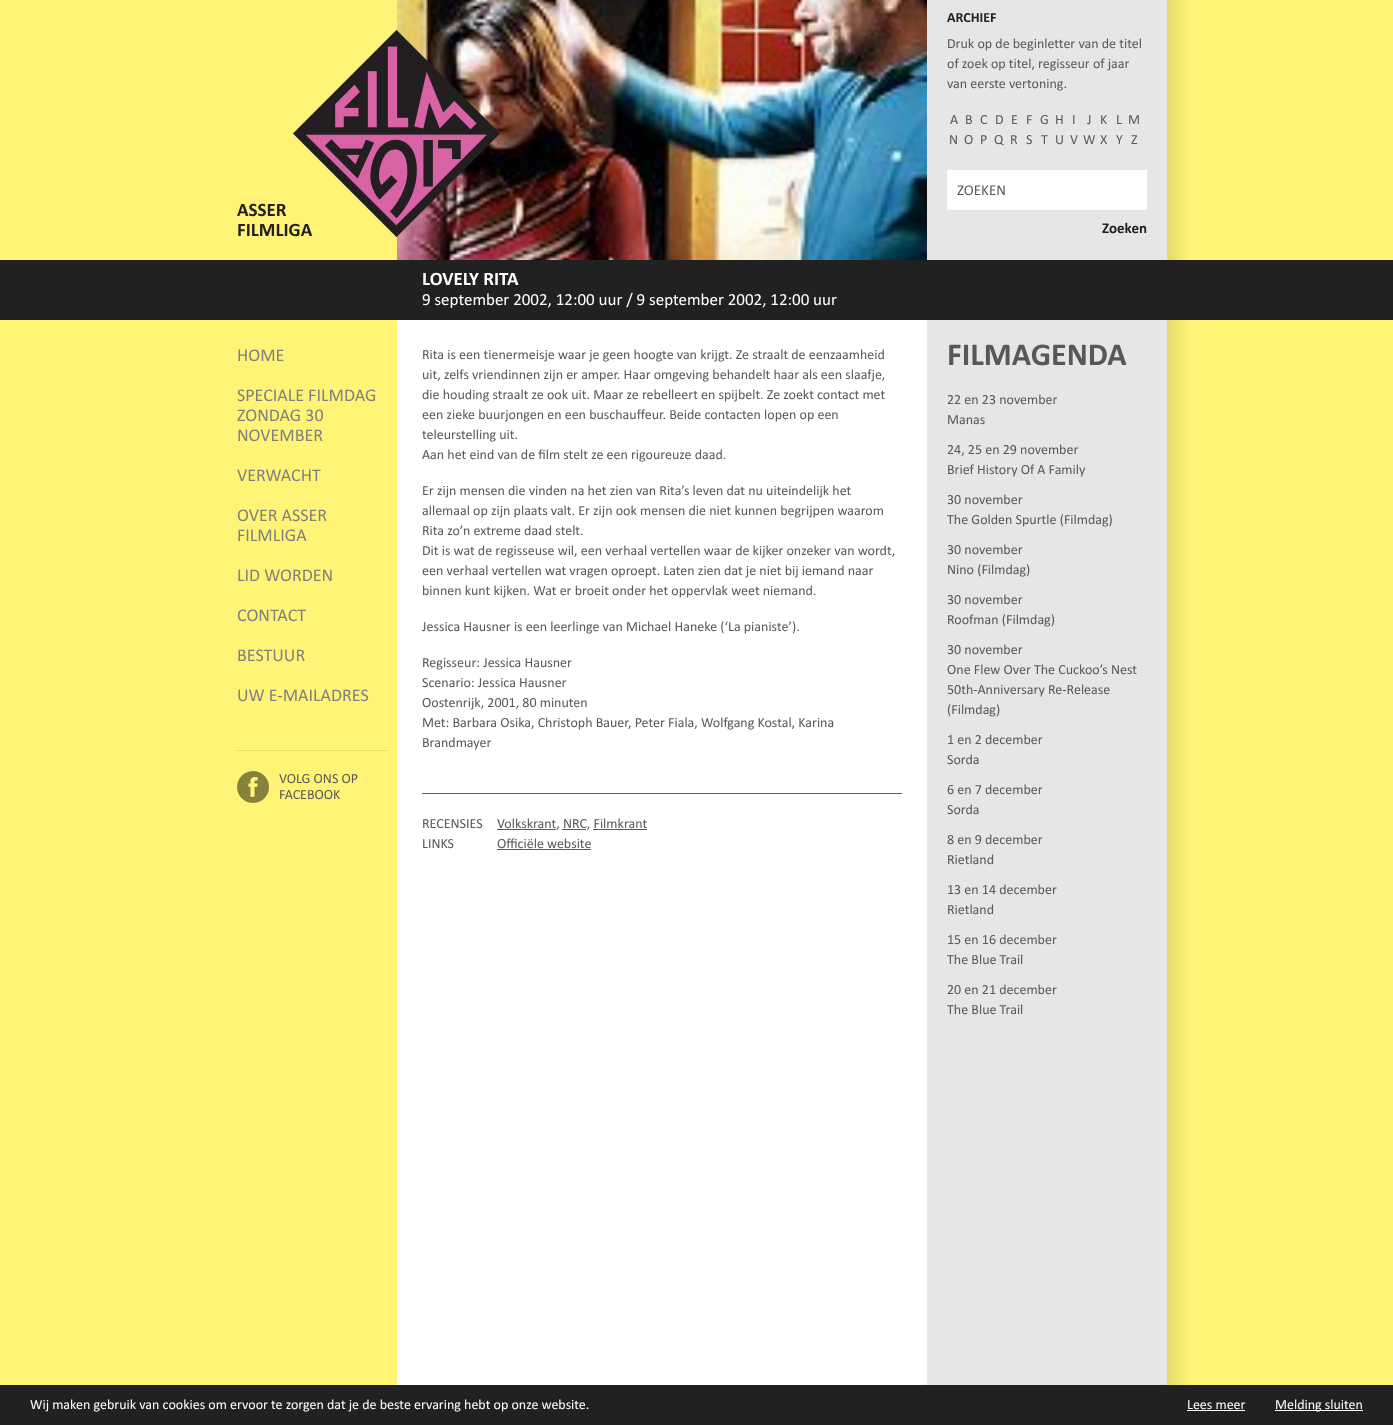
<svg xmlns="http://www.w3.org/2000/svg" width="1393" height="1425">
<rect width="100%" height="100%" fill="#fff475"/>
<image x="397" y="0" width="791" height="1385" href="media/1.png"/>
<text x="237" y="216" style="font-family:Calibri;font-size:19px;font-weight:bold;fill:#212121">ASSER</text>
<text x="237" y="236" style="font-family:Calibri;font-size:19px;font-weight:bold;fill:#212121">FILMLIGA</text>
<image x="397" y="0" width="530" height="260" href="media/3.png"/>
<image x="293" y="30" width="207" height="207" href="media/2.png"/>
<text x="947" y="22" style="font-family:Calibri;font-size:14px;font-weight:bold;fill:#212121">ARCHIEF</text>
<text x="947" y="48" style="font-family:Calibri;font-size:14px;fill:#585858">Druk op de beginletter van de titel</text>
<text x="947" y="68" style="font-family:Calibri;font-size:14px;fill:#585858">of zoek op titel, regisseur of jaar</text>
<text x="947" y="88" style="font-family:Calibri;font-size:14px;fill:#585858">van eerste vertoning.</text>
<text x="950" y="124" style="font-family:Calibri;font-size:14px;fill:#585858">A</text>
<text x="965" y="124" style="font-family:Calibri;font-size:14px;fill:#585858">B</text>
<text x="980" y="124" style="font-family:Calibri;font-size:14px;fill:#585858">C</text>
<text x="995" y="124" style="font-family:Calibri;font-size:14px;fill:#585858">D</text>
<text x="1011" y="124" style="font-family:Calibri;font-size:14px;fill:#585858">E</text>
<text x="1026" y="124" style="font-family:Calibri;font-size:14px;fill:#585858">F</text>
<text x="1040" y="124" style="font-family:Calibri;font-size:14px;fill:#585858">G</text>
<text x="1055" y="124" style="font-family:Calibri;font-size:14px;fill:#585858">H</text>
<text x="1072" y="124" style="font-family:Calibri;font-size:14px;fill:#585858">I</text>
<text x="1087" y="124" style="font-family:Calibri;font-size:14px;fill:#585858">J</text>
<text x="1100" y="124" style="font-family:Calibri;font-size:14px;fill:#585858">K</text>
<text x="1116" y="124" style="font-family:Calibri;font-size:14px;fill:#585858">L</text>
<text x="1128" y="124" style="font-family:Calibri;font-size:14px;fill:#585858">M</text>
<text x="949" y="144" style="font-family:Calibri;font-size:14px;fill:#585858">N</text>
<text x="964" y="144" style="font-family:Calibri;font-size:14px;fill:#585858">O</text>
<text x="980" y="144" style="font-family:Calibri;font-size:14px;fill:#585858">P</text>
<text x="994" y="144" style="font-family:Calibri;font-size:14px;fill:#585858">Q</text>
<text x="1010" y="144" style="font-family:Calibri;font-size:14px;fill:#585858">R</text>
<text x="1026" y="144" style="font-family:Calibri;font-size:14px;fill:#585858">S</text>
<text x="1041" y="144" style="font-family:Calibri;font-size:14px;fill:#585858">T</text>
<text x="1055" y="144" style="font-family:Calibri;font-size:14px;fill:#585858">U</text>
<text x="1070" y="144" style="font-family:Calibri;font-size:14px;fill:#585858">V</text>
<text x="1083" y="144" style="font-family:Calibri;font-size:14px;fill:#585858">W</text>
<text x="1100" y="144" style="font-family:Calibri;font-size:14px;fill:#585858">X</text>
<text x="1116" y="144" style="font-family:Calibri;font-size:14px;fill:#585858">Y</text>
<text x="1131" y="144" style="font-family:Calibri;font-size:14px;fill:#585858">Z</text>
<rect x="947" y="170" width="200" height="40" fill="#fff"/>
<text x="957" y="195" style="font-family:Calibri;font-size:15px;fill:#585858">ZOEKEN</text>
<text x="1102" y="233" style="font-family:Calibri;font-size:15px;font-weight:bold;fill:#212121">Zoeken</text>
<rect y="260" width="1393" height="60" fill="#212121"/>
<text x="422" y="285" style="font-family:Calibri;font-size:19px;font-weight:bold;fill:#fff">LOVELY RITA</text>
<text x="422" y="305" style="font-family:Calibri;font-size:17px;fill:#fff">9 september 2002, 12:00 uur / 9 september 2002, 12:00 uur</text>
<text x="237" y="361" style="font-family:Calibri;font-size:18px;fill:#808080">HOME</text>
<text x="237" y="401" style="font-family:Calibri;font-size:18px;fill:#808080">SPECIALE FILMDAG</text>
<text x="237" y="421" style="font-family:Calibri;font-size:18px;fill:#808080">ZONDAG 30</text>
<text x="237" y="441" style="font-family:Calibri;font-size:18px;fill:#808080">NOVEMBER</text>
<text x="237" y="481" style="font-family:Calibri;font-size:18px;fill:#808080">VERWACHT</text>
<text x="237" y="521" style="font-family:Calibri;font-size:18px;fill:#808080">OVER ASSER</text>
<text x="237" y="541" style="font-family:Calibri;font-size:18px;fill:#808080">FILMLIGA</text>
<text x="237" y="581" style="font-family:Calibri;font-size:18px;fill:#808080">LID WORDEN</text>
<text x="237" y="621" style="font-family:Calibri;font-size:18px;fill:#808080">CONTACT</text>
<text x="237" y="661" style="font-family:Calibri;font-size:18px;fill:#808080">BESTUUR</text>
<text x="237" y="701" style="font-family:Calibri;font-size:18px;fill:#808080">UW E-MAILADRES</text>
<rect x="237" y="750" width="150" height="1" fill="#e6dc69"/>
<image x="237" y="771" width="32" height="32" href="media/4.png"/>
<text x="279" y="783" style="font-family:Calibri;font-size:14px;fill:#585858">VOLG ONS OP</text>
<text x="279" y="799" style="font-family:Calibri;font-size:14px;fill:#585858">FACEBOOK</text>
<text x="422" y="359" style="font-family:Calibri;font-size:14px;fill:#585858">Rita is een tienermeisje waar je geen hoogte van krijgt. Ze straalt de eenzaamheid</text>
<text x="422" y="379" style="font-family:Calibri;font-size:14px;fill:#585858">uit, zelfs vriendinnen zijn er amper. Haar omgeving behandelt haar als een slaafje,</text>
<text x="422" y="399" style="font-family:Calibri;font-size:14px;fill:#585858">die houding straalt ze ook uit. Maar ze rebelleert en spijbelt. Ze zoekt contact met</text>
<text x="422" y="419" style="font-family:Calibri;font-size:14px;fill:#585858">een zieke buurjongen en een buschauffeur. Beide contacten lopen op een</text>
<text x="422" y="439" style="font-family:Calibri;font-size:14px;fill:#585858">teleurstelling uit.</text>
<text x="422" y="459" style="font-family:Calibri;font-size:14px;fill:#585858">Aan het eind van de film stelt ze een rigoureuze daad.</text>
<text x="422" y="495" style="font-family:Calibri;font-size:14px;fill:#585858">Er zijn mensen die vinden na het zien van Rita’s leven dat nu uiteindelijk het</text>
<text x="422" y="515" style="font-family:Calibri;font-size:14px;fill:#585858">allemaal op zijn plaats valt. Er zijn ook mensen die niet kunnen begrijpen waarom</text>
<text x="422" y="535" style="font-family:Calibri;font-size:14px;fill:#585858">Rita zo’n extreme daad stelt.</text>
<text x="422" y="555" style="font-family:Calibri;font-size:14px;fill:#585858">Dit is wat de regisseuse wil, een verhaal vertellen waar de kijker onzeker van wordt,</text>
<text x="422" y="575" style="font-family:Calibri;font-size:14px;fill:#585858">een verhaal vertellen wat vragen oproept. Laten zien dat je niet bij iemand naar</text>
<text x="422" y="595" style="font-family:Calibri;font-size:14px;fill:#585858">binnen kunt kijken. Wat er broeit onder het oppervlak weet niemand.</text>
<text x="422" y="631" style="font-family:Calibri;font-size:14px;fill:#585858">Jessica Hausner is een leerlinge van Michael Haneke (‘La pianiste’).</text>
<rect x="422" y="793" width="480" height="1" fill="#585858"/>
<text x="422" y="667" style="font-family:Calibri;font-size:14px;fill:#585858">Regisseur: Jessica Hausner</text>
<text x="422" y="687" style="font-family:Calibri;font-size:14px;fill:#585858">Scenario: Jessica Hausner</text>
<text x="422" y="707" style="font-family:Calibri;font-size:14px;fill:#585858">Oostenrijk, 2001, 80 minuten</text>
<text x="422" y="727" style="font-family:Calibri;font-size:14px;fill:#585858">Met: Barbara Osika, Christoph Bauer, Peter Fiala, Wolfgang Kostal, Karina</text>
<text x="422" y="747" style="font-family:Calibri;font-size:14px;fill:#585858">Brandmayer</text>
<text x="422" y="828" style="font-family:Calibri;font-size:14px;fill:#585858">RECENSIES</text>
<rect x="497" y="829" width="59" height="1" fill="#585858"/>
<text x="497" y="828" style="font-family:Calibri;font-size:14px;fill:#585858">Volkskrant, NRC, Filmkrant</text>
<rect x="562" y="829" width="24" height="1" fill="#585858"/>
<rect x="593" y="829" width="54" height="1" fill="#585858"/>
<text x="422" y="848" style="font-family:Calibri;font-size:14px;fill:#585858">LINKS</text>
<text x="497" y="848" style="font-family:Calibri;font-size:14px;fill:#585858">Officiële website</text>
<rect x="497" y="849" width="94" height="1" fill="#585858"/>
<text x="947" y="365" style="font-family:Calibri;font-size:32px;font-weight:bold;fill:#585858">FILMAGENDA</text>
<text x="947" y="404" style="font-family:Calibri;font-size:14px;fill:#585858">22 en 23 november</text>
<text x="947" y="424" style="font-family:Calibri;font-size:14px;fill:#585858">Manas</text>
<text x="947" y="454" style="font-family:Calibri;font-size:14px;fill:#585858">24, 25 en 29 november</text>
<text x="947" y="474" style="font-family:Calibri;font-size:14px;fill:#585858">Brief History Of A Family</text>
<text x="947" y="504" style="font-family:Calibri;font-size:14px;fill:#585858">30 november</text>
<text x="947" y="524" style="font-family:Calibri;font-size:14px;fill:#585858">The Golden Spurtle (Filmdag)</text>
<text x="947" y="554" style="font-family:Calibri;font-size:14px;fill:#585858">30 november</text>
<text x="947" y="574" style="font-family:Calibri;font-size:14px;fill:#585858">Nino (Filmdag)</text>
<text x="947" y="604" style="font-family:Calibri;font-size:14px;fill:#585858">30 november</text>
<text x="947" y="624" style="font-family:Calibri;font-size:14px;fill:#585858">Roofman (Filmdag)</text>
<text x="947" y="654" style="font-family:Calibri;font-size:14px;fill:#585858">30 november</text>
<text x="947" y="674" style="font-family:Calibri;font-size:14px;fill:#585858">One Flew Over The Cuckoo’s Nest</text>
<text x="947" y="694" style="font-family:Calibri;font-size:14px;fill:#585858">50th-Anniversary Re-Release</text>
<text x="947" y="714" style="font-family:Calibri;font-size:14px;fill:#585858">(Filmdag)</text>
<text x="947" y="744" style="font-family:Calibri;font-size:14px;fill:#585858">1 en 2 december</text>
<text x="947" y="764" style="font-family:Calibri;font-size:14px;fill:#585858">Sorda</text>
<text x="947" y="794" style="font-family:Calibri;font-size:14px;fill:#585858">6 en 7 december</text>
<text x="947" y="814" style="font-family:Calibri;font-size:14px;fill:#585858">Sorda</text>
<text x="947" y="844" style="font-family:Calibri;font-size:14px;fill:#585858">8 en 9 december</text>
<text x="947" y="864" style="font-family:Calibri;font-size:14px;fill:#585858">Rietland</text>
<text x="947" y="894" style="font-family:Calibri;font-size:14px;fill:#585858">13 en 14 december</text>
<text x="947" y="914" style="font-family:Calibri;font-size:14px;fill:#585858">Rietland</text>
<text x="947" y="944" style="font-family:Calibri;font-size:14px;fill:#585858">15 en 16 december</text>
<text x="947" y="964" style="font-family:Calibri;font-size:14px;fill:#585858">The Blue Trail</text>
<text x="947" y="994" style="font-family:Calibri;font-size:14px;fill:#585858">20 en 21 december</text>
<text x="947" y="1014" style="font-family:Calibri;font-size:14px;fill:#585858">The Blue Trail</text>
<rect y="1385" width="1393" height="40" fill="#212121"/>
<text x="30" y="1409" style="font-family:Calibri;font-size:14px;fill:#fff">Wij maken gebruik van cookies om ervoor te zorgen dat je de beste ervaring hebt op onze website.</text>
<text x="1187" y="1409" style="font-family:Calibri;font-size:14px;fill:#fff">Lees meer</text>
<rect x="1187" y="1410" width="58" height="1" fill="#fff"/>
<rect x="1275" y="1410" width="88" height="1" fill="#fff"/>
<text x="1275" y="1409" style="font-family:Calibri;font-size:14px;fill:#fff">Melding sluiten</text>
</svg>
